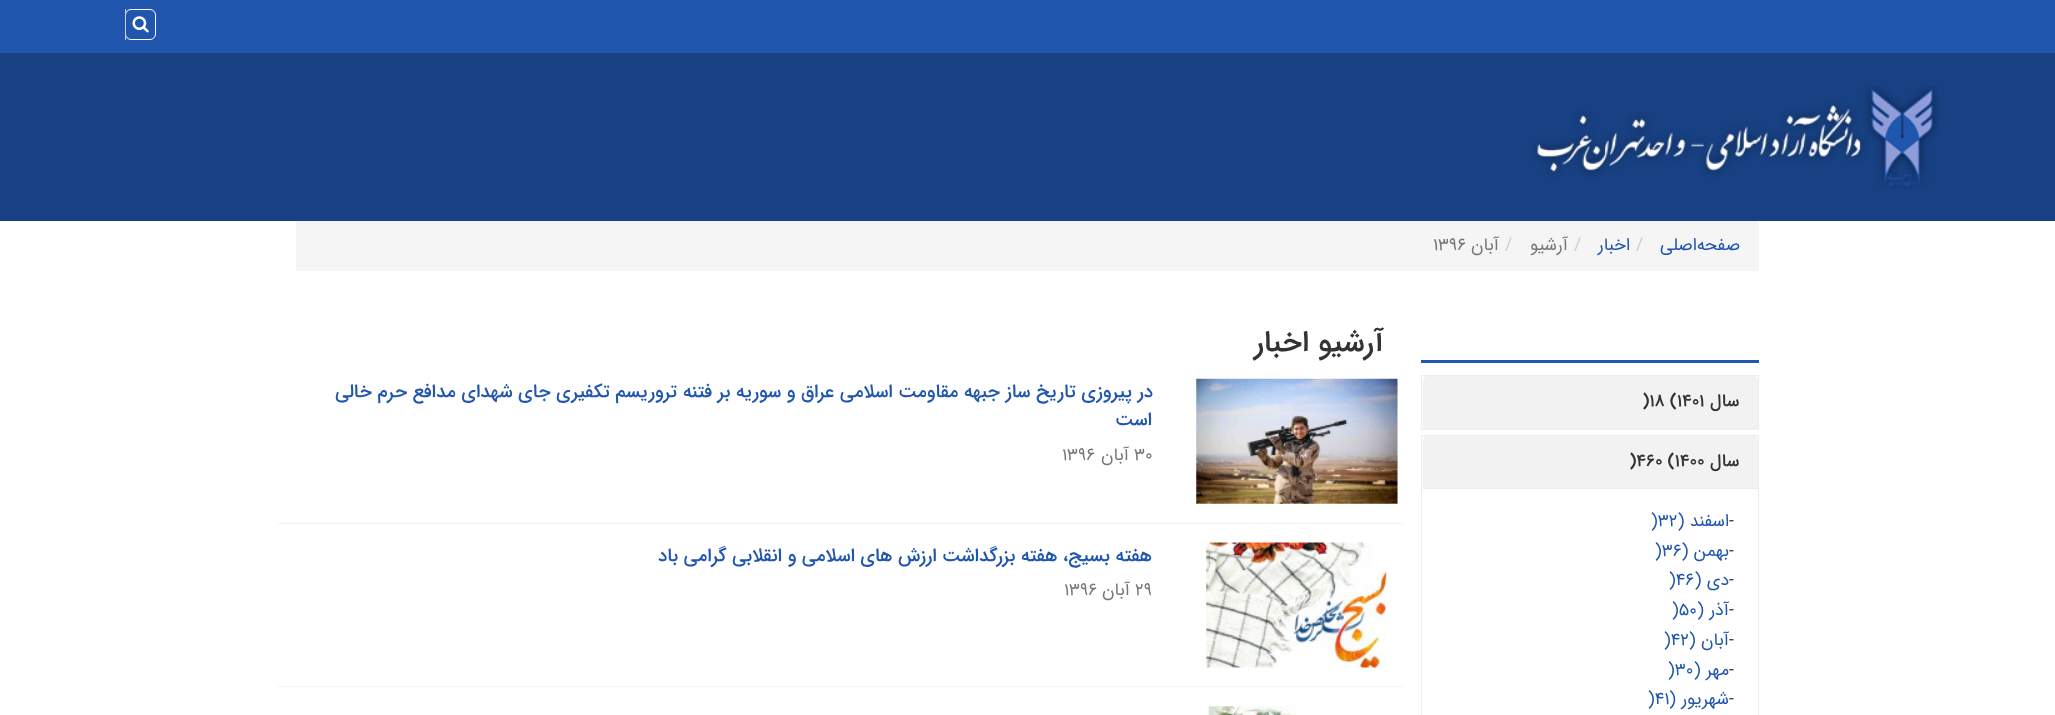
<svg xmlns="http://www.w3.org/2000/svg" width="2055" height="715">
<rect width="100%" height="100%" fill="#fff"/>
<rect width="2055" height="53" fill="#2056ae"/>
<rect x="125.5" y="9.5" width="30" height="30" rx="5.5" fill="none" stroke="#fff"/>
<image x="132" y="16" width="17" height="17" href="media/1.png"/>
<rect x="125" y="9" width="1" height="31" fill="#ccc"/>
<rect y="53" width="2055" height="168" fill="#184183"/>
<image x="1532" y="86" width="407" height="103" href="media/2.png"/>
<rect x="296" y="221" width="1463" height="50" fill="#f5f5f5"/>
<text x="1740" y="250" style="font-family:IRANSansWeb;font-size:17.5px;direction:rtl;fill:#2056ae">صفحه‌اصلی</text>
<text x="1636" y="250" style="font-family:IRANSansWeb;font-size:17.5px;fill:#ccc">/</text>
<text x="1630" y="250" style="font-family:IRANSansWeb;font-size:17.5px;direction:rtl;fill:#2056ae">اخبار</text>
<text x="1574" y="250" style="font-family:IRANSansWeb;font-size:17.5px;fill:#ccc">/</text>
<text x="1568" y="250" style="font-family:IRANSansWeb;font-size:17.5px;direction:rtl;fill:#777">آرشیو</text>
<text x="1505" y="250" style="font-family:IRANSansWeb;font-size:17.5px;fill:#ccc">/</text>
<text x="1499" y="250" style="font-family:IRANSansWeb;font-size:17.5px;direction:rtl;fill:#777">آبان</text>
<text x="1433" y="250" style="font-family:IRANSansWeb;font-size:17.5px;fill:#777">۱۳۹۶</text>
<rect x="1421" y="360" width="338" height="3" fill="#2056ae"/>
<rect x="1421" y="376" width="338" height="54" fill="#0000000d" filter="blur(0.5px)"/>
<rect x="1421.5" y="375.5" width="337" height="53" fill="#fff" stroke="#ededed"/>
<path d="M1427 376h327c2 0 4 2 4 4v48h-335v-48c0-2 2-4 4-4z" fill="#f2f2f2"/>
<text x="1739" y="406" style="font-family:IRANSansWeb;font-size:17.5px;font-weight:500;direction:rtl;fill:#333">سال</text>
<text x="1642" y="406" style="font-family:IRANSansWeb;font-size:17.5px;font-weight:500;fill:#333">)۱۸ (۱۴۰۱</text>
<rect x="1421.5" y="435.5" width="337" height="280" fill="none" stroke="#ededed"/>
<path d="M1427 436h327c2 0 4 2 4 4v48h-335v-48c0-2 2-4 4-4z" fill="#f2f2f2"/>
<text x="1739" y="466" style="font-family:IRANSansWeb;font-size:17.5px;font-weight:500;direction:rtl;fill:#333">سال</text>
<text x="1629" y="466" style="font-family:IRANSansWeb;font-size:17.5px;font-weight:500;fill:#333">)۴۶۰ (۱۴۰۰</text>
<rect x="1423" y="488" width="335" height="1" fill="#ededed"/>
<text x="1729" y="526" style="font-family:IRANSansWeb;font-size:17.5px;fill:#333">-</text>
<text x="1729" y="526" style="font-family:IRANSansWeb;font-size:17.5px;direction:rtl;fill:#2056ae">اسفند (</text>
<text x="1651" y="526" style="font-family:IRANSansWeb;font-size:17.5px;fill:#2056ae">)۳۲</text>
<text x="1729" y="556" style="font-family:IRANSansWeb;font-size:17.5px;fill:#333">-</text>
<text x="1729" y="556" style="font-family:IRANSansWeb;font-size:17.5px;direction:rtl;fill:#2056ae">بهمن (</text>
<text x="1655" y="556" style="font-family:IRANSansWeb;font-size:17.5px;fill:#2056ae">)۳۶</text>
<text x="1729" y="585" style="font-family:IRANSansWeb;font-size:17.5px;fill:#333">-</text>
<text x="1729" y="585" style="font-family:IRANSansWeb;font-size:17.5px;direction:rtl;fill:#2056ae">دی (</text>
<text x="1669" y="585" style="font-family:IRANSansWeb;font-size:17.5px;fill:#2056ae">)۴۶</text>
<text x="1729" y="615" style="font-family:IRANSansWeb;font-size:17.5px;fill:#333">-</text>
<text x="1729" y="615" style="font-family:IRANSansWeb;font-size:17.5px;direction:rtl;fill:#2056ae">آذر (</text>
<text x="1672" y="615" style="font-family:IRANSansWeb;font-size:17.5px;fill:#2056ae">)۵۰</text>
<text x="1729" y="645" style="font-family:IRANSansWeb;font-size:17.5px;fill:#333">-</text>
<text x="1729" y="645" style="font-family:IRANSansWeb;font-size:17.5px;direction:rtl;fill:#2056ae">آبان (</text>
<text x="1664" y="645" style="font-family:IRANSansWeb;font-size:17.5px;fill:#2056ae">)۴۲</text>
<text x="1729" y="675" style="font-family:IRANSansWeb;font-size:17.5px;fill:#333">-</text>
<text x="1729" y="675" style="font-family:IRANSansWeb;font-size:17.5px;direction:rtl;fill:#2056ae">مهر (</text>
<text x="1668" y="675" style="font-family:IRANSansWeb;font-size:17.5px;fill:#2056ae">)۳۰</text>
<text x="1729" y="704" style="font-family:IRANSansWeb;font-size:17.5px;fill:#333">-</text>
<text x="1729" y="704" style="font-family:IRANSansWeb;font-size:17.5px;direction:rtl;fill:#2056ae">شهریور (</text>
<text x="1648" y="704" style="font-family:IRANSansWeb;font-size:17.5px;fill:#2056ae">)۴۱</text>
<text x="1384" y="351" style="font-family:IRANSansWeb;font-size:30px;font-weight:500;direction:rtl;fill:#333">آرشیو اخبار</text>
<rect x="278" y="523" width="1125" height="1" fill="#f2f2f2"/>
<image x="1196" y="378" width="202" height="126" href="media/3.png"/>
<text x="1153" y="397" style="font-family:IRANSansWeb;font-size:18.75px;font-weight:500;direction:rtl;fill:#2056ae">در پیروزی تاریخ ساز جبهه مقاومت اسلامی عراق و سوریه بر فتنه تروریسم تکفیری جای شهدای مدافع حرم خالی</text>
<text x="1152" y="425" style="font-family:IRANSansWeb;font-size:18.75px;font-weight:500;direction:rtl;fill:#2056ae">است</text>
<text x="1134" y="460" style="font-family:IRANSansWeb;font-size:17.5px;fill:#777">۳۰</text>
<text x="1129" y="460" style="font-family:IRANSansWeb;font-size:17.5px;direction:rtl;fill:#777">آبان</text>
<text x="1062" y="460" style="font-family:IRANSansWeb;font-size:17.5px;fill:#777">۱۳۹۶</text>
<rect x="278" y="686" width="1125" height="1" fill="#f2f2f2"/>
<image x="1206" y="542" width="181" height="126" href="media/4.png"/>
<text x="1152" y="561" style="font-family:IRANSansWeb;font-size:18.75px;font-weight:500;direction:rtl;fill:#2056ae">هفته بسیج، هفته بزرگداشت ارزش های اسلامی و انقلابی گرامی باد</text>
<text x="1135" y="595" style="font-family:IRANSansWeb;font-size:17.5px;fill:#777">۲۹</text>
<text x="1130" y="595" style="font-family:IRANSansWeb;font-size:17.5px;direction:rtl;fill:#777">آبان</text>
<text x="1064" y="595" style="font-family:IRANSansWeb;font-size:17.5px;fill:#777">۱۳۹۶</text>
<image x="1208" y="706" width="88" height="9" href="media/5.png"/>
</svg>
